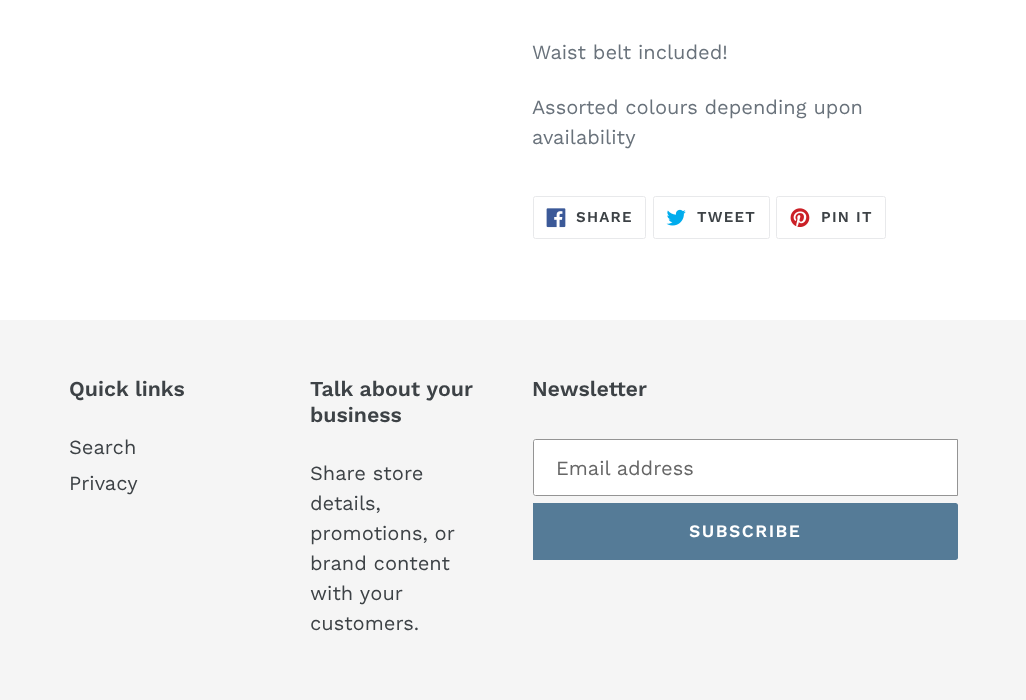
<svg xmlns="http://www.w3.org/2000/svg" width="1026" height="700">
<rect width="100%" height="100%" fill="#fff"/>
<text x="532" y="59" style="font-family:Work Sans;font-size:20px;fill:#69727b">Waist belt included!</text>
<text x="532" y="114" style="font-family:Work Sans;font-size:20px;fill:#69727b">Assorted colours depending upon</text>
<text x="532" y="144" style="font-family:Work Sans;font-size:20px;fill:#69727b">availability</text>
<rect x="533.5" y="196.5" width="112" height="42" rx="2" fill="none" stroke="#e8e9eb"/>
<image x="546" y="208" width="20" height="20" href="media/1.png"/>
<text x="576" y="222" style="font-family:Work Sans;font-size:15px;font-weight:600;letter-spacing:1.25px;fill:#3d4246">SHARE</text>
<rect x="653.5" y="196.5" width="116" height="42" rx="2" fill="none" stroke="#e8e9eb"/>
<image x="666" y="209" width="20" height="17" href="media/2.png"/>
<text x="697" y="222" style="font-family:Work Sans;font-size:15px;font-weight:600;letter-spacing:1.25px;fill:#3d4246">TWEET</text>
<rect x="776.5" y="196.5" width="109" height="42" rx="2" fill="none" stroke="#e8e9eb"/>
<image x="790" y="208" width="20" height="19" href="media/3.png"/>
<text x="821" y="222" style="font-family:Work Sans;font-size:15px;font-weight:600;letter-spacing:1.25px;fill:#3d4246">PIN IT</text>
<rect y="320" width="1026" height="380" fill="#f5f5f5"/>
<text x="69" y="396" style="font-family:Work Sans;font-size:21.25px;font-weight:600;fill:#3d4246">Quick links</text>
<text x="69" y="454" style="font-family:Work Sans;font-size:20px;fill:#3d4246">Search</text>
<text x="69" y="490" style="font-family:Work Sans;font-size:20px;fill:#3d4246">Privacy</text>
<text x="310" y="396" style="font-family:Work Sans;font-size:21.25px;font-weight:600;fill:#3d4246">Talk about your</text>
<text x="310" y="422" style="font-family:Work Sans;font-size:21.25px;font-weight:600;fill:#3d4246">business</text>
<text x="310" y="480" style="font-family:Work Sans;font-size:20px;fill:#3d4246">Share store</text>
<text x="310" y="510" style="font-family:Work Sans;font-size:20px;fill:#3d4246">details,</text>
<text x="310" y="540" style="font-family:Work Sans;font-size:20px;fill:#3d4246">promotions, or</text>
<text x="310" y="570" style="font-family:Work Sans;font-size:20px;fill:#3d4246">brand content</text>
<text x="310" y="600" style="font-family:Work Sans;font-size:20px;fill:#3d4246">with your</text>
<text x="310" y="630" style="font-family:Work Sans;font-size:20px;fill:#3d4246">customers.</text>
<text x="532" y="396" style="font-family:Work Sans;font-size:21.25px;font-weight:600;fill:#3d4246">Newsletter</text>
<path d="M535.5 439.5h422v56h-422c-1 0-2-1-2-2v-52c0-1 1-2 2-2z" fill="#fff" stroke="#949494"/>
<text x="556" y="475" style="font-family:Work Sans;font-size:20px;fill:#666">Email address</text>
<path d="M533 503h422.5c1.5 0 2.5 1 2.5 2.5v52c0 1.5-1 2.5-2.5 2.5h-422.5z" fill="#557b97"/>
<text x="689" y="537" style="font-family:Work Sans;font-size:17.5px;font-weight:600;letter-spacing:1.5px;fill:#fff">SUBSCRIBE</text>
</svg>
